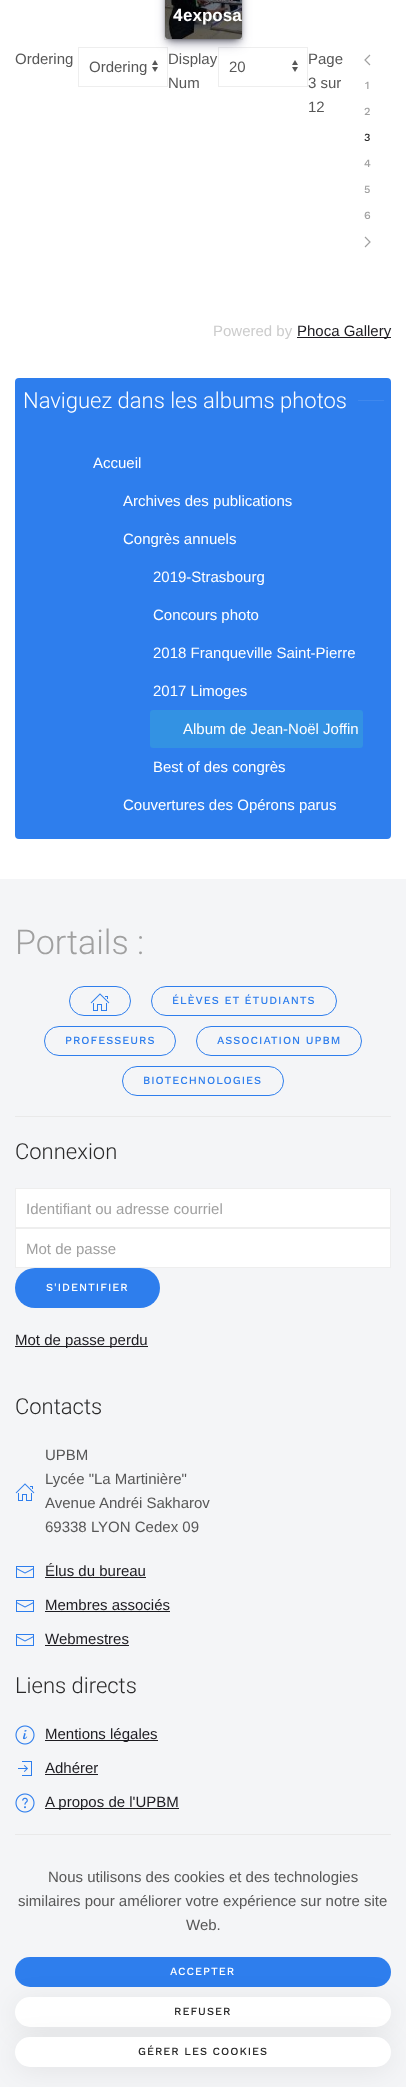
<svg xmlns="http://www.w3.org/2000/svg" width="406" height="2087">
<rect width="100%" height="100%" fill="#fff"/>
<rect x="164.5" y="-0.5" width="78" height="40" fill="none" stroke="#f0f0f0"/>
<image x="152" y="60" width="6" height="12" href="media/2.png"/>
<rect x="78.5" y="47.5" width="89" height="39" fill="none" stroke="#eee"/>
<image x="292" y="60" width="6" height="12" href="media/2.png"/>
<rect x="218.5" y="47.5" width="89" height="39" fill="none" stroke="#eee"/>
<rect x="167" y="-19" width="73" height="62" rx="1" fill="#32325d66" filter="blur(6px)"/>
<rect x="168" y="-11" width="71" height="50" fill="#000000b3" filter="blur(3.5px)"/>
<image x="165" y="0" width="77" height="39" href="media/1.png"/>
<path d="M165-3h77v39c0 1.5-1.5 3-3 3h-71c-1.5 0-3-1.5-3-3z" fill="#00000080"/>
<text x="173" y="21" style="font-family:Noto Sans;font-size:17px;font-weight:bold;fill:#fff">4</text>
<text x="183" y="21" style="font-family:Liberation Sans;font-size:17px;font-weight:bold;fill:#fff">exposa</text>
<text x="15" y="64" style="font-family:Liberation Sans;font-size:15px;fill:#575757">Ordering</text>
<text x="89" y="72" style="font-family:Liberation Sans;font-size:15px;fill:#575757">Ordering</text>
<text x="168" y="64" style="font-family:Liberation Sans;font-size:15px;fill:#575757">Display</text>
<text x="229" y="72" style="font-family:Liberation Sans;font-size:15px;fill:#575757">20</text>
<text x="308" y="64" style="font-family:Liberation Sans;font-size:15px;fill:#575757">Page</text>
<text x="308" y="88" style="font-family:Liberation Sans;font-size:15px;fill:#575757">3 sur</text>
<text x="308" y="112" style="font-family:Liberation Sans;font-size:15px;fill:#575757">12</text>
<text x="168" y="88" style="font-family:Liberation Sans;font-size:15px;fill:#575757">Num</text>
<path d="M370 55l-5 5l5 5" fill="none" stroke="#a0a0a0" stroke-width="1.2"/>
<text x="365" y="89" style="font-family:Work Sans;font-size:11px;font-weight:500;fill:#a0a0a0">1</text>
<text x="364" y="115" style="font-family:Work Sans;font-size:11px;font-weight:500;fill:#a0a0a0">2</text>
<text x="364" y="141" style="font-family:Work Sans;font-size:11px;font-weight:500;fill:#292929">3</text>
<text x="364" y="167" style="font-family:Work Sans;font-size:11px;font-weight:500;fill:#a0a0a0">4</text>
<text x="364" y="193" style="font-family:Work Sans;font-size:11px;font-weight:500;fill:#a0a0a0">5</text>
<text x="364" y="219" style="font-family:Work Sans;font-size:11px;font-weight:500;fill:#a0a0a0">6</text>
<path d="M365 237l5 5l-5 5" fill="none" stroke="#a0a0a0" stroke-width="1.2"/>
<text x="213" y="336" style="font-family:Liberation Sans;font-size:15px;fill:#ccc">Powered by</text>
<rect x="297" y="337" width="94" height="1" fill="#1d1c21"/>
<text x="297" y="336" style="font-family:Liberation Sans;font-size:15px;fill:#1d1c21">Phoca Gallery</text>
<rect x="15" y="378" width="376" height="461" rx="4" fill="#2e7eed"/>
<text x="23" y="408" style="font-family:Roboto;font-size:22px;font-weight:300;fill:#fff">Naviguez dans les albums photos</text>
<rect x="358" y="400" width="26" height="1" fill="#3f88ee"/>
<text x="93" y="468" style="font-family:Liberation Sans;font-size:15px;fill:#fff">Accueil</text>
<text x="123" y="506" style="font-family:Liberation Sans;font-size:15px;fill:#fff">Archives des publications</text>
<text x="123" y="544" style="font-family:Liberation Sans;font-size:15px;fill:#fff">Congrès annuels</text>
<text x="153" y="582" style="font-family:Liberation Sans;font-size:15px;fill:#fff">2019-Strasbourg</text>
<text x="153" y="620" style="font-family:Liberation Sans;font-size:15px;fill:#fff">Concours photo</text>
<text x="153" y="658" style="font-family:Liberation Sans;font-size:15px;fill:#fff">2018 Franqueville Saint-Pierre</text>
<text x="153" y="696" style="font-family:Liberation Sans;font-size:15px;fill:#fff">2017 Limoges</text>
<rect x="150" y="710" width="213" height="38" rx="3" fill="#3392e3"/>
<text x="183" y="734" style="font-family:Liberation Sans;font-size:15px;fill:#fff">Album de Jean-Noël Joffin</text>
<text x="153" y="772" style="font-family:Liberation Sans;font-size:15px;fill:#fff">Best of des congrès</text>
<text x="123" y="810" style="font-family:Liberation Sans;font-size:15px;fill:#fff">Couvertures des Opérons parus</text>
<rect y="879" width="406" height="1208" fill="#f4f5f7"/>
<text x="15" y="954" style="font-family:Roboto;font-size:34px;font-weight:300;fill:#a0a0a0">Portails :</text>
<rect x="69.5" y="986.5" width="61" height="29" rx="14.5" fill="none" stroke="#2e7eed"/>
<image x="90" y="993" width="20" height="18" href="media/3.png"/>
<rect x="151.5" y="986.5" width="185" height="29" rx="14.5" fill="none" stroke="#2e7eed"/>
<text x="172" y="1004" style="font-family:Work Sans;font-size:11px;font-weight:500;letter-spacing:1px;fill:#2e7eed">ÉLÈVES ET ÉTUDIANTS</text>
<rect x="44.5" y="1026.5" width="131" height="29" rx="14.5" fill="none" stroke="#2e7eed"/>
<text x="65" y="1044" style="font-family:Work Sans;font-size:11px;font-weight:500;letter-spacing:1px;fill:#2e7eed">PROFESSEURS</text>
<rect x="196.5" y="1026.5" width="165" height="29" rx="14.5" fill="none" stroke="#2e7eed"/>
<text x="217" y="1044" style="font-family:Work Sans;font-size:11px;font-weight:500;letter-spacing:1px;fill:#2e7eed">ASSOCIATION UPBM</text>
<rect x="122.5" y="1066.5" width="161" height="29" rx="14.5" fill="none" stroke="#2e7eed"/>
<text x="143" y="1084" style="font-family:Work Sans;font-size:11px;font-weight:500;letter-spacing:1px;fill:#2e7eed">BIOTECHNOLOGIES</text>
<rect x="15" y="1116" width="376" height="1" fill="#e9e9e9"/>
<text x="15" y="1159" style="font-family:Roboto;font-size:22px;font-weight:300;fill:#292929">Connexion</text>
<rect x="15.5" y="1188.5" width="375" height="39" fill="#fff" stroke="#eee"/>
<text x="26" y="1214" style="font-family:Liberation Sans;font-size:15px;fill:#a0a0a0">Identifiant ou adresse courriel</text>
<rect x="15.5" y="1228.5" width="375" height="39" fill="#fff" stroke="#eee"/>
<text x="26" y="1254" style="font-family:Liberation Sans;font-size:15px;fill:#a0a0a0">Mot de passe</text>
<rect x="15" y="1268" width="145" height="40" rx="20" fill="#2e7eed"/>
<text x="46" y="1291" style="font-family:Work Sans;font-size:11px;font-weight:500;letter-spacing:1px;fill:#fff">S'IDENTIFIER</text>
<rect x="15" y="1346" width="133" height="1" fill="#1d1c21"/>
<text x="15" y="1345" style="font-family:Liberation Sans;font-size:15px;fill:#1d1c21">Mot de passe perdu</text>
<text x="15" y="1414" style="font-family:Roboto;font-size:22px;font-weight:300;fill:#292929">Contacts</text>
<image x="15" y="1483" width="20" height="18" href="media/3.png"/>
<text x="45" y="1460" style="font-family:Liberation Sans;font-size:15px;fill:#575757">UPBM</text>
<text x="45" y="1484" style="font-family:Liberation Sans;font-size:15px;fill:#575757">Lycée "La Martinière"</text>
<text x="45" y="1508" style="font-family:Liberation Sans;font-size:15px;fill:#575757">Avenue Andréi Sakharov</text>
<text x="45" y="1532" style="font-family:Liberation Sans;font-size:15px;fill:#575757">69338 LYON Cedex 09</text>
<image x="16" y="1566" width="18" height="12" href="media/4.png"/>
<text x="45" y="1576" style="font-family:Liberation Sans;font-size:15px;fill:#1d1c21">Élus du bureau</text>
<rect x="45" y="1577" width="101" height="1" fill="#1d1c21"/>
<image x="16" y="1600" width="18" height="12" href="media/4.png"/>
<text x="45" y="1610" style="font-family:Liberation Sans;font-size:15px;fill:#1d1c21">Membres associés</text>
<rect x="45" y="1611" width="125" height="1" fill="#1d1c21"/>
<image x="16" y="1634" width="18" height="12" href="media/4.png"/>
<text x="45" y="1644" style="font-family:Liberation Sans;font-size:15px;fill:#1d1c21">Webmestres</text>
<rect x="45" y="1645" width="84" height="1" fill="#1d1c21"/>
<text x="15" y="1693" style="font-family:Roboto;font-size:22px;font-weight:300;fill:#292929">Liens directs</text>
<image x="15" y="1725" width="20" height="20" href="media/5.png"/>
<rect x="45" y="1740" width="113" height="1" fill="#1d1c21"/>
<text x="45" y="1739" style="font-family:Liberation Sans;font-size:15px;fill:#1d1c21">Mentions légales</text>
<image x="18" y="1761" width="14" height="15" href="media/6.png"/>
<text x="45" y="1773" style="font-family:Liberation Sans;font-size:15px;fill:#1d1c21">Adhérer</text>
<rect x="45" y="1774" width="53" height="1" fill="#1d1c21"/>
<image x="15" y="1793" width="20" height="20" href="media/7.png"/>
<rect x="45" y="1808" width="134" height="1" fill="#1d1c21"/>
<text x="45" y="1807" style="font-family:Liberation Sans;font-size:15px;fill:#1d1c21">A propos de l'UPBM</text>
<rect x="15" y="1834" width="376" height="1" fill="#e9e9e9"/>
<text x="48" y="1882" style="font-family:Liberation Sans;font-size:15px;fill:#575757">Nous utilisons des cookies et des technologies</text>
<text x="18" y="1906" style="font-family:Liberation Sans;font-size:15px;fill:#575757">similaires pour améliorer votre expérience sur notre site</text>
<text x="186" y="1930" style="font-family:Liberation Sans;font-size:15px;fill:#575757">Web.</text>
<rect x="15" y="1957" width="376" height="30" rx="15" fill="#2e7eed"/>
<text x="170" y="1975" style="font-family:Work Sans;font-size:11px;font-weight:500;letter-spacing:1px;fill:#fff">ACCEPTER</text>
<rect x="15" y="2001" width="376" height="30" rx="15" fill="#00000012" filter="blur(14px)"/>
<rect x="15" y="1997" width="376" height="30" rx="15" fill="#fff"/>
<text x="174" y="2015" style="font-family:Work Sans;font-size:11px;font-weight:500;letter-spacing:1px;fill:#292929">REFUSER</text>
<rect x="15" y="2041" width="376" height="30" rx="15" fill="#00000012" filter="blur(14px)"/>
<rect x="15" y="2037" width="376" height="30" rx="15" fill="#fff"/>
<text x="138" y="2055" style="font-family:Work Sans;font-size:11px;font-weight:500;letter-spacing:1px;fill:#292929">GÉRER LES COOKIES</text>
</svg>
